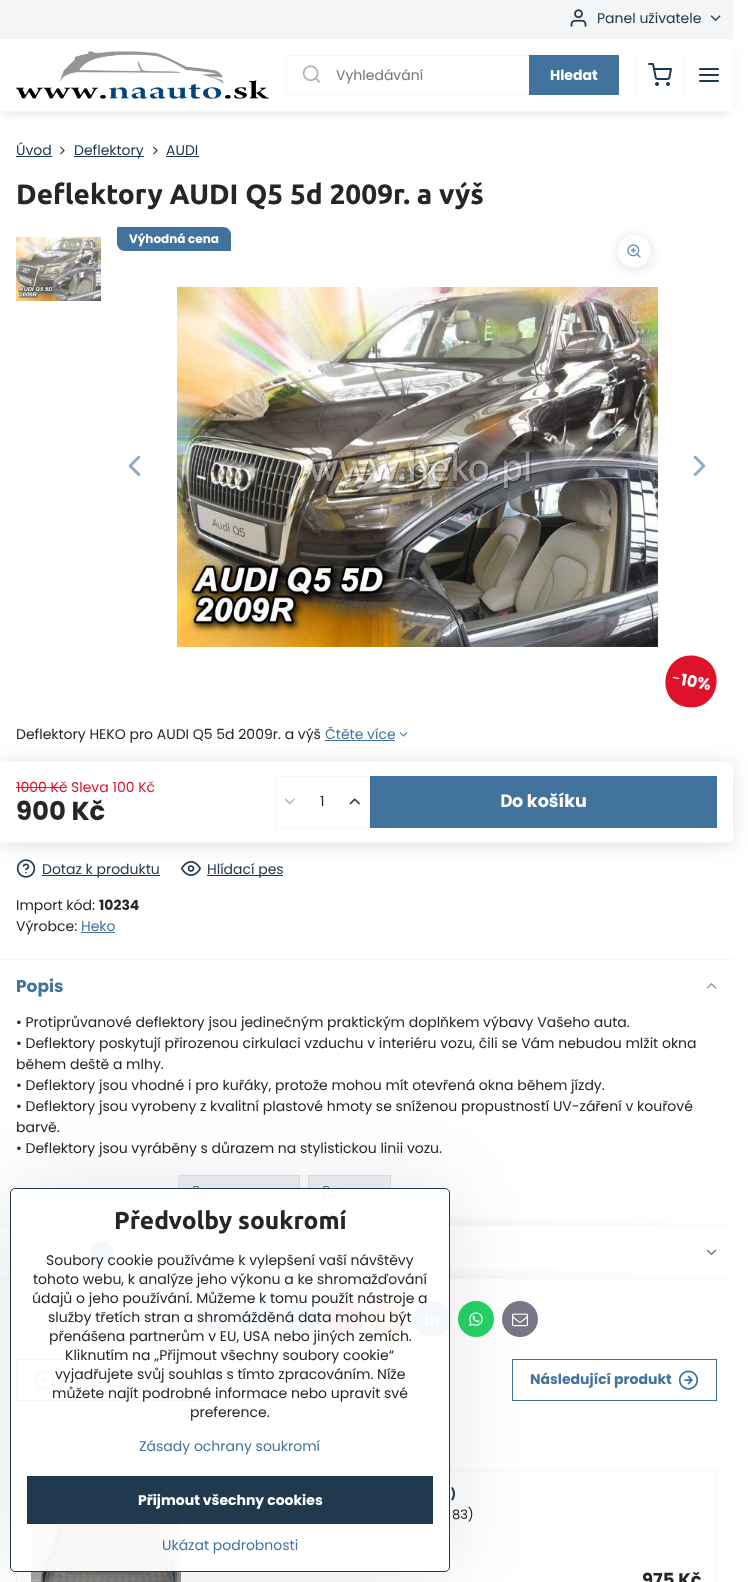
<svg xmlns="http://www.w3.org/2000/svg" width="748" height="1582">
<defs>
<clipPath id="clip1"><path d="M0 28h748v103h-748zm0 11h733v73h-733z" clip-rule="evenodd"/></clipPath>
<clipPath id="clip2"><path d="M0 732h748v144h-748zm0 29h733v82h-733z" clip-rule="evenodd"/></clipPath>
<radialGradient id="g1" gradientUnits="userSpaceOnUse" cx="0" cy="0" r="1" gradientTransform="matrix(570 0 0 17 367 1225)"><stop offset="0" stop-color="#f4f5f6"/><stop offset="0.7" stop-color="#fff"/></radialGradient>
<radialGradient id="g2" gradientUnits="userSpaceOnUse" cx="0" cy="0" r="1" gradientTransform="matrix(570 0 0 17 367 1278)"><stop offset="0" stop-color="#f4f5f6"/><stop offset="0.7" stop-color="#fff"/></radialGradient>
<clipPath id="clip3"><path d="M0 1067h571v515h-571zm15 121h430c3 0 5 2 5 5v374c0 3-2 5-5 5h-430c-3 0-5-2-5-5v-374c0-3 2-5 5-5z" clip-rule="evenodd"/></clipPath>
</defs>
<rect width="100%" height="100%" fill="#fff"/>
<rect width="733" height="39" fill="#f4f5f6"/>
<image x="570" y="9" width="17" height="18" href="media/1.png"/>
<text x="597" y="23" style="font-family:Poppins;font-size:14px;fill:#20394e">Panel uživatele</text>
<image x="710" y="15" width="11" height="6" href="media/2.png"/>
<g clip-path="url(#clip1)">
<rect x="4" y="47" width="725" height="65" fill="#00001426" filter="blur(6px)"/>
</g>
<rect y="111" width="733" height="1" fill="#f4f5f6"/>
<image x="16" y="51" width="253" height="48" href="media/3.png"/>
<rect x="286.5" y="55.5" width="332" height="39" fill="none" stroke="#f4f5f6"/>
<image x="302" y="65" width="19" height="18" href="media/4.png"/>
<text x="336" y="80" style="font-family:Poppins;font-size:14px;fill:#757575">Vyhledávání</text>
<rect x="529" y="55" width="90" height="40" fill="#41739c"/>
<text x="550" y="80" style="font-family:Poppins;font-size:14px;font-weight:bold;fill:#fff">Hledat</text>
<rect x="635" y="55" width="1" height="40" fill="#f4f5f6"/>
<image x="648" y="63" width="24" height="23" href="media/5.png"/>
<rect x="684" y="55" width="1" height="40" fill="#f4f5f6"/>
<image x="699" y="68" width="20" height="14" href="media/6.png"/>
<text x="16" y="155" style="font-family:Poppins;font-size:14px;fill:#20394e">Úvod</text>
<rect x="16" y="156" width="36" height="1" fill="#20394e"/>
<image x="60" y="146" width="5" height="9" href="media/7.png"/>
<rect x="74" y="156" width="70" height="1" fill="#20394e"/>
<text x="74" y="155" style="font-family:Poppins;font-size:14px;fill:#20394e">Deflektory</text>
<image x="153" y="146" width="5" height="9" href="media/7.png"/>
<text x="166" y="155" style="font-family:Poppins;font-size:14px;fill:#20394e">AUDI</text>
<rect x="166" y="156" width="33" height="1" fill="#20394e"/>
<text x="16" y="204" style="font-family:Ubuntu;font-size:28px;font-weight:bold;fill:#262626">Deflektory AUDI Q5 5d 2009r. a výš</text>
<text x="16" y="739" style="font-family:Poppins;font-size:14px;fill:#262626">Deflektory HEKO pro AUDI Q5 5d 2009r. a výš</text>
<text x="325" y="739" style="font-family:Poppins;font-size:14px;fill:#41739c">Čtěte více</text>
<rect x="325" y="740" width="70" height="1" fill="#41739c"/>
<image x="399" y="732" width="9" height="5" href="media/8.png"/>
<image x="16" y="859" width="20" height="19" href="media/11.png"/>
<rect x="42" y="875" width="118" height="1" fill="#20394e"/>
<image x="181" y="861" width="20" height="15" href="media/12.png"/>
<rect x="207" y="875" width="76" height="1" fill="#20394e"/>
<g clip-path="url(#clip2)">
<rect x="2" y="765" width="729" height="78" fill="#00001426" filter="blur(10.5px)"/>
</g>
<rect y="761" width="733" height="1" fill="#f4f5f6"/>
<rect y="842" width="733" height="1" fill="#f4f5f6"/>
<text x="16" y="792" style="font-family:Poppins;font-size:14px;fill:#de122b">1000 Kč</text>
<rect x="16" y="787" width="51" height="1" fill="#de122b"/>
<text x="71" y="792" style="font-family:Poppins;font-size:14px;fill:#de122b">Sleva 100 Kč</text>
<text x="16" y="820" style="font-family:Poppins;font-size:26px;font-weight:bold;fill:#262626">900 Kč</text>
<rect x="275.5" y="776.5" width="94" height="51" fill="none" stroke="#f4f5f6"/>
<image x="284" y="798" width="11" height="7" href="media/9.png"/>
<text x="320" y="806" style="font-family:Poppins;font-size:14px;fill:#262626">1</text>
<image x="349" y="798" width="11" height="7" href="media/10.png"/>
<rect x="370" y="776" width="347" height="52" fill="#41739c"/>
<text x="500" y="807" style="font-family:Noto Sans;font-size:17.5px;font-weight:bold;fill:#fff">D</text>
<text x="512" y="807" style="font-family:Poppins;font-size:17.5px;font-weight:bold;fill:#fff">o košíku</text>
<text x="42" y="874" style="font-family:Poppins;font-size:14px;fill:#20394e">Dotaz k produktu</text>
<text x="207" y="874" style="font-family:Poppins;font-size:14px;fill:#20394e">Hlídací pes</text>
<text x="16" y="910" style="font-family:Poppins;font-size:14px;fill:#262626">Import kód:</text>
<text x="99" y="910" style="font-family:Poppins;font-size:14px;font-weight:bold;fill:#262626">10234</text>
<text x="16" y="931" style="font-family:Poppins;font-size:14px;fill:#262626">Výrobce:</text>
<text x="81" y="931" style="font-family:Poppins;font-size:14px;fill:#41739c">Heko</text>
<rect x="81" y="932" width="34" height="1" fill="#41739c"/>
<image x="16" y="237" width="85" height="64" href="media/13.png"/>
<path d="M117 227h106c4.5 0 8 3.5 8 8v16h-106c-4.5 0-8-3.5-8-8z" fill="#41739c"/>
<text x="129" y="243" style="font-family:Poppins;font-size:12px;font-weight:bold;fill:#fff">Výhodná cena</text>
<image x="177" y="287" width="481" height="360" href="media/15.png"/>
<rect x="617" y="236" width="34" height="34" rx="17" fill="#33334326" filter="blur(6px)"/>
<circle cx="634" cy="251" r="16.5" fill="#fff" stroke="#f6f7f8"/>
<image x="627" y="244" width="14" height="14" href="media/14.png"/>
<image x="128" y="455" width="13" height="21" href="media/16.png"/>
<image x="693" y="455" width="13" height="21" href="media/17.png"/>
<path d="M696 656c33 6 24 57-10 51c-33-6-24-57 10-51z" fill="#de122b"/>
<text x="671" y="683" transform="rotate(10 671 683)" style="font-family:Poppins;font-size:16px;fill:#fff">-</text>
<text x="680" y="685" transform="rotate(10 680 685)" style="font-family:Poppins;font-size:16px;font-weight:bold;fill:#fff">10%</text>
<rect y="1278" width="733" height="1" fill="#f4f5f6"/>
<rect x="59" y="1216" width="616" height="9" fill="url(#g1)"/>
<rect y="959" width="733" height="1" fill="#f4f5f6"/>
<text x="16" y="992" style="font-family:Poppins;font-size:17px;font-weight:bold;fill:#41739c">Popis</text>
<image x="706" y="983" width="11" height="6" href="media/18.png"/>
<text x="16" y="1027" style="font-family:Poppins;font-size:14px;fill:#262626">• Protiprůvanové deflektory jsou jedinečným praktickým doplňkem výbavy Vašeho auta.</text>
<text x="16" y="1048" style="font-family:Poppins;font-size:14px;fill:#262626">• Deflektory poskytují přirozenou cirkulaci vzduchu v interiéru vozu, čili se Vám nebudou mlžit okna</text>
<text x="16" y="1069" style="font-family:Poppins;font-size:14px;fill:#262626">během deště a mlhy.</text>
<text x="16" y="1090" style="font-family:Poppins;font-size:14px;fill:#262626">• Deflektory jsou vhodné i pro kuřáky, protože mohou mít otevřená okna během jízdy.</text>
<text x="16" y="1111" style="font-family:Poppins;font-size:14px;fill:#262626">• Deflektory jsou vyrobeny z kvalitní plastové hmoty se sníženou propustností UV-záření v kouřové</text>
<text x="16" y="1132" style="font-family:Poppins;font-size:14px;fill:#262626">barvě.</text>
<text x="16" y="1153" style="font-family:Poppins;font-size:14px;fill:#262626">• Deflektory jsou vyráběny s důrazem na stylistickou linii vozu.</text>
<rect x="178.5" y="1175.5" width="121" height="33" fill="#eef2f6" stroke="#dee7ee"/>
<image x="193" y="1186" width="15" height="11" href="media/19.png"/>
<rect x="308.5" y="1175.5" width="82" height="33" fill="#eef2f6" stroke="#dee7ee"/>
<image x="323" y="1186" width="15" height="11" href="media/19.png"/>
<rect x="59" y="1269" width="616" height="9" fill="url(#g2)"/>
<rect y="1225" width="733" height="1" fill="#f4f5f6"/>
<circle cx="102" cy="1252" r="11" fill="#41739c"/>
<image x="706" y="1249" width="11" height="7" href="media/20.png"/>
<circle cx="213" cy="1319" r="18" fill="#4267b2"/>
<image x="209" y="1311" width="9" height="16" href="media/21.png"/>
<circle cx="257" cy="1319" r="18" fill="#55acee"/>
<image x="249" y="1312" width="16" height="14" href="media/22.png"/>
<circle cx="301" cy="1319" r="18" fill="#1185fe"/>
<image x="293" y="1312" width="16" height="14" href="media/23.png"/>
<circle cx="345" cy="1319" r="18" fill="#e60023"/>
<image x="339" y="1311" width="12" height="16" href="media/24.png"/>
<circle cx="388" cy="1319" r="18" fill="#ff4500"/>
<image x="380" y="1311" width="16" height="16" href="media/25.png"/>
<circle cx="432" cy="1319" r="18" fill="#2867b2"/>
<image x="425" y="1312" width="14" height="14" href="media/26.png"/>
<circle cx="476" cy="1319" r="18" fill="#25d366"/>
<image x="469" y="1312" width="14" height="15" href="media/27.png"/>
<circle cx="520" cy="1319" r="18" fill="#778"/>
<image x="512" y="1313" width="16" height="14" href="media/28.png"/>
<rect x="16.5" y="1359.5" width="194" height="41" fill="none" stroke="#41739c"/>
<image x="34" y="1370" width="21" height="20" href="media/29.png"/>
<rect x="512.5" y="1359.5" width="204" height="41" fill="none" stroke="#41739c"/>
<text x="530" y="1384" style="font-family:Poppins;font-size:14px;font-weight:bold;fill:#41739c">Následující produkt</text>
<image x="678" y="1370" width="21" height="20" href="media/30.png"/>
<rect x="16.5" y="1470.5" width="700" height="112" fill="none" stroke="#f4f5f6"/>
<image x="31" y="1524" width="150" height="58" href="media/31.png"/>
<text x="451" y="1498" style="font-family:Ubuntu;font-size:14px;font-weight:bold;fill:#20394e">)</text>
<text x="452" y="1519" style="font-family:Poppins;font-size:13px;fill:#262626">83)</text>
<text x="642" y="1586" style="font-family:Poppins;font-size:18px;font-weight:bold;fill:#262626">975 Kč</text>
<g clip-path="url(#clip3)">
<rect x="10" y="1188" width="440" height="384" rx="5" fill="#0000001a" filter="blur(40px)"/>
</g>
<rect x="10.5" y="1188.5" width="439" height="383" rx="4.5" fill="#fffffff2" stroke="#20394e"/>
<text x="114" y="1229" style="font-family:Ubuntu;font-size:24.5px;font-weight:bold;fill:#262626">Předvolby soukromí</text>
<text x="46" y="1265" style="font-family:Poppins;font-size:14px;fill:#262626">Soubory cookie používáme k vylepšení vaší návštěvy</text>
<text x="33" y="1284" style="font-family:Poppins;font-size:14px;fill:#262626">tohoto webu, k analýze jeho výkonu a ke shromažďování</text>
<text x="32" y="1303" style="font-family:Poppins;font-size:14px;fill:#262626">údajů o jeho používání. Můžeme k tomu použít nástroje a</text>
<text x="48" y="1322" style="font-family:Poppins;font-size:14px;fill:#262626">služby třetích stran a shromážděná data mohou být</text>
<text x="49" y="1341" style="font-family:Poppins;font-size:14px;fill:#262626">přenášena partnerům v EU, USA nebo jiných zemích.</text>
<text x="65" y="1360" style="font-family:Poppins;font-size:14px;fill:#262626">Kliknutím na „Přijmout všechny soubory cookie“</text>
<text x="55" y="1379" style="font-family:Poppins;font-size:14px;fill:#262626">vyjadřujete svůj souhlas s tímto zpracováním. Níže</text>
<text x="52" y="1398" style="font-family:Poppins;font-size:14px;fill:#262626">můžete najít podrobné informace nebo upravit své</text>
<text x="190" y="1417" style="font-family:Poppins;font-size:14px;fill:#262626">preference.</text>
<text x="139" y="1451" style="font-family:Poppins;font-size:14px;fill:#41739c">Zásady ochrany soukromí</text>
<rect x="27" y="1476" width="406" height="48" fill="#20394e"/>
<text x="138" y="1505" style="font-family:Poppins;font-size:14px;font-weight:bold;fill:#fff">Přijmout všechny cookies</text>
<text x="162" y="1550" style="font-family:Poppins;font-size:14px;fill:#41739c">Ukázat podrobnosti</text>
</svg>
